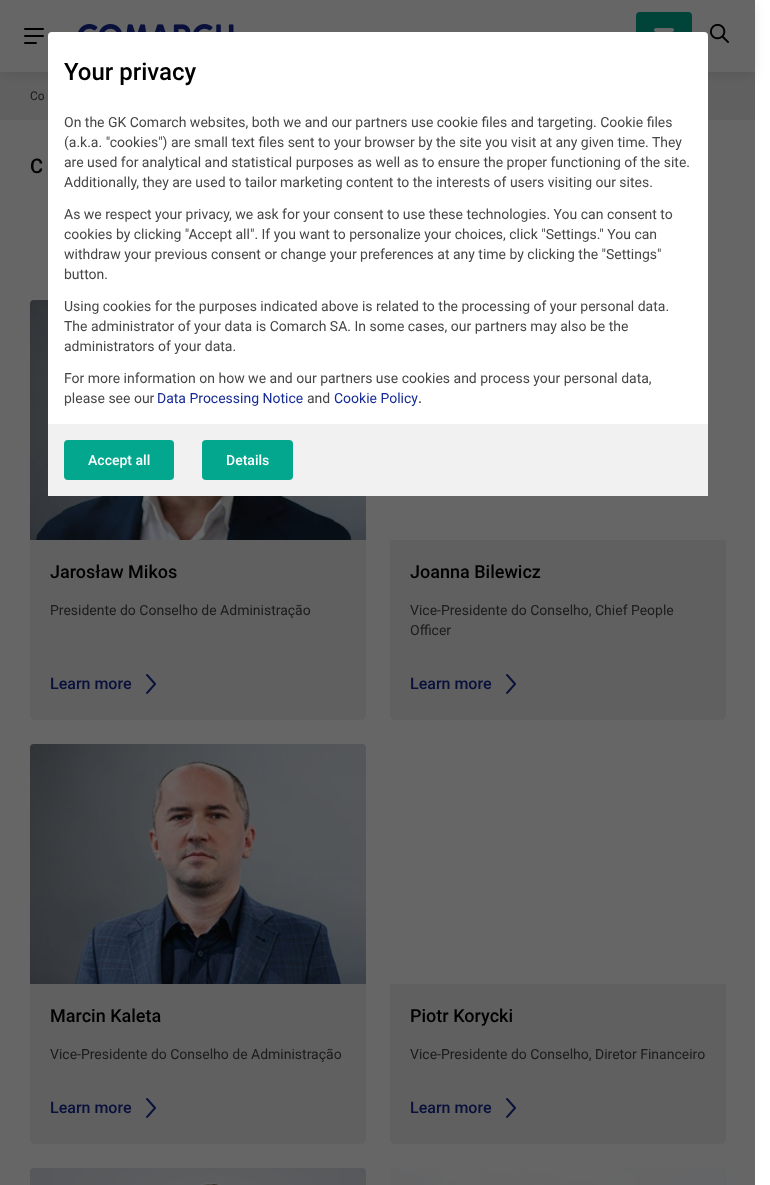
<svg xmlns="http://www.w3.org/2000/svg" width="770" height="1185">
<defs>
<clipPath id="clip1"><path d="M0 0h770v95h-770zm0 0h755v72h-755z" clip-rule="evenodd"/></clipPath>
</defs>
<rect width="100%" height="100%" fill="#fff"/>
<rect y="72" width="755" height="48" fill="#f1f1f1"/>
<g clip-path="url(#clip1)">
<rect y="4" width="755" height="72" fill="#00000014" filter="blur(6px)"/>
</g>
<rect x="24" y="35" width="20" height="2" rx="1" fill="#000"/>
<rect x="24" y="28" width="20" height="2" rx="1" fill="#000"/>
<rect x="24" y="42" width="13" height="2" rx="1" fill="#000"/>
<image x="78" y="24" width="156" height="8" href="media/1.png"/>
<rect x="636" y="12" width="56" height="48" rx="4" fill="#02a78e"/>
<image x="654" y="28" width="20" height="4" href="media/2.png"/>
<image x="710" y="23" width="19" height="20" href="media/3.png"/>
<text x="30" y="100" style="font-family:Roboto;font-size:12px;fill:#464646">Co</text>
<text x="30" y="173" style="font-family:Roboto;font-size:20px;font-weight:500;fill:#000">C</text>
<image x="30" y="300" width="336" height="240" href="media/4.png"/>
<path d="M30 540h336v176c0 2-2 4-4 4h-328c-2 0-4-2-4-4z" fill="#f1f1f1"/>
<text x="50" y="578" style="font-family:Roboto;font-size:18px;font-weight:500;fill:#000">Jarosław Mikos</text>
<text x="50" y="615" style="font-family:Roboto;font-size:14px;fill:#464646">Presidente do Conselho de Administração</text>
<text x="50" y="689" style="font-family:Roboto;font-size:16px;font-weight:500;fill:#152a94">Learn more</text>
<image x="146" y="674" width="10" height="20" href="media/5.png"/>
<path d="M390 540h336v176c0 2-2 4-4 4h-328c-2 0-4-2-4-4z" fill="#f1f1f1"/>
<text x="410" y="578" style="font-family:Roboto;font-size:18px;font-weight:500;fill:#000">Joanna Bilewicz</text>
<text x="410" y="615" style="font-family:Roboto;font-size:14px;fill:#464646">Vice-Presidente do Conselho, Chief People</text>
<text x="410" y="635" style="font-family:Roboto;font-size:14px;fill:#464646">Officer</text>
<text x="410" y="689" style="font-family:Roboto;font-size:16px;font-weight:500;fill:#152a94">Learn more</text>
<image x="506" y="674" width="10" height="20" href="media/5.png"/>
<image x="30" y="744" width="336" height="240" href="media/6.png"/>
<path d="M30 984h336v156c0 2-2 4-4 4h-328c-2 0-4-2-4-4z" fill="#f1f1f1"/>
<text x="50" y="1022" style="font-family:Roboto;font-size:18px;font-weight:500;fill:#000">Marcin Kaleta</text>
<text x="50" y="1059" style="font-family:Roboto;font-size:14px;fill:#464646">Vice-Presidente do Conselho de Administração</text>
<text x="50" y="1113" style="font-family:Roboto;font-size:16px;font-weight:500;fill:#152a94">Learn more</text>
<image x="146" y="1098" width="10" height="20" href="media/5.png"/>
<path d="M390 984h336v156c0 2-2 4-4 4h-328c-2 0-4-2-4-4z" fill="#f1f1f1"/>
<text x="410" y="1022" style="font-family:Roboto;font-size:18px;font-weight:500;fill:#000">Piotr Korycki</text>
<text x="410" y="1059" style="font-family:Roboto;font-size:14px;fill:#464646">Vice-Presidente do Conselho, Diretor Financeiro</text>
<text x="410" y="1113" style="font-family:Roboto;font-size:16px;font-weight:500;fill:#152a94">Learn more</text>
<image x="506" y="1098" width="10" height="20" href="media/5.png"/>
<image x="30" y="1168" width="336" height="17" href="media/7.png"/>
<image x="390" y="1168" width="336" height="17" href="media/8.png"/>
<rect width="755" height="1185" fill="#00000099"/>
<rect x="48" y="32" width="660" height="464" rx="4" fill="#fff"/>
<text x="64" y="80" style="font-family:Roboto;font-size:24px;font-weight:500;fill:#000">Your privacy</text>
<text x="64" y="127" style="font-family:Roboto;font-size:14px;fill:#464646">On the GK Comarch websites, both we and our partners use cookie files and targeting. Cookie files</text>
<text x="64" y="147" style="font-family:Roboto;font-size:14px;fill:#464646">(a.k.a. "cookies") are small text files sent to your browser by the site you visit at any given time. They</text>
<text x="64" y="167" style="font-family:Roboto;font-size:14px;fill:#464646">are used for analytical and statistical purposes as well as to ensure the proper functioning of the site.</text>
<text x="64" y="187" style="font-family:Roboto;font-size:14px;fill:#464646">Additionally, they are used to tailor marketing content to the interests of users visiting our sites.</text>
<text x="64" y="219" style="font-family:Roboto;font-size:14px;fill:#464646">As we respect your privacy, we ask for your consent to use these technologies. You can consent to</text>
<text x="64" y="239" style="font-family:Roboto;font-size:14px;fill:#464646">cookies by clicking "Accept all". If you want to personalize your choices, click "Settings." You can</text>
<text x="64" y="259" style="font-family:Roboto;font-size:14px;fill:#464646">withdraw your previous consent or change your preferences at any time by clicking the "Settings"</text>
<text x="64" y="279" style="font-family:Roboto;font-size:14px;fill:#464646">button.</text>
<text x="64" y="311" style="font-family:Roboto;font-size:14px;fill:#464646">Using cookies for the purposes indicated above is related to the processing of your personal data.</text>
<text x="64" y="331" style="font-family:Roboto;font-size:14px;fill:#464646">The administrator of your data is Comarch SA. In some cases, our partners may also be the</text>
<text x="64" y="351" style="font-family:Roboto;font-size:14px;fill:#464646">administrators of your data.</text>
<text x="64" y="383" style="font-family:Roboto;font-size:14px;fill:#464646">For more information on how we and our partners use cookies and process your personal data,</text>
<text x="64" y="403" style="font-family:Roboto;font-size:14px;fill:#464646">please see our</text>
<text x="157" y="403" style="font-family:Roboto;font-size:14px;fill:#152a94">Data Processing Notice</text>
<text x="307" y="403" style="font-family:Roboto;font-size:14px;fill:#464646">and</text>
<text x="334" y="403" style="font-family:Roboto;font-size:14px;fill:#152a94">Cookie Policy</text>
<text x="418" y="403" style="font-family:Roboto;font-size:14px;font-weight:500;fill:#464646">.</text>
<rect x="48" y="424" width="660" height="72" fill="#f1f1f1"/>
<rect x="64" y="440" width="110" height="40" rx="4" fill="#02a78e"/>
<text x="88" y="465" style="font-family:Roboto;font-size:14px;font-weight:500;fill:#fff">Accept all</text>
<rect x="202" y="440" width="91" height="40" rx="4" fill="#02a78e"/>
<text x="226" y="465" style="font-family:Roboto;font-size:14px;font-weight:500;fill:#fff">Details</text>
</svg>
